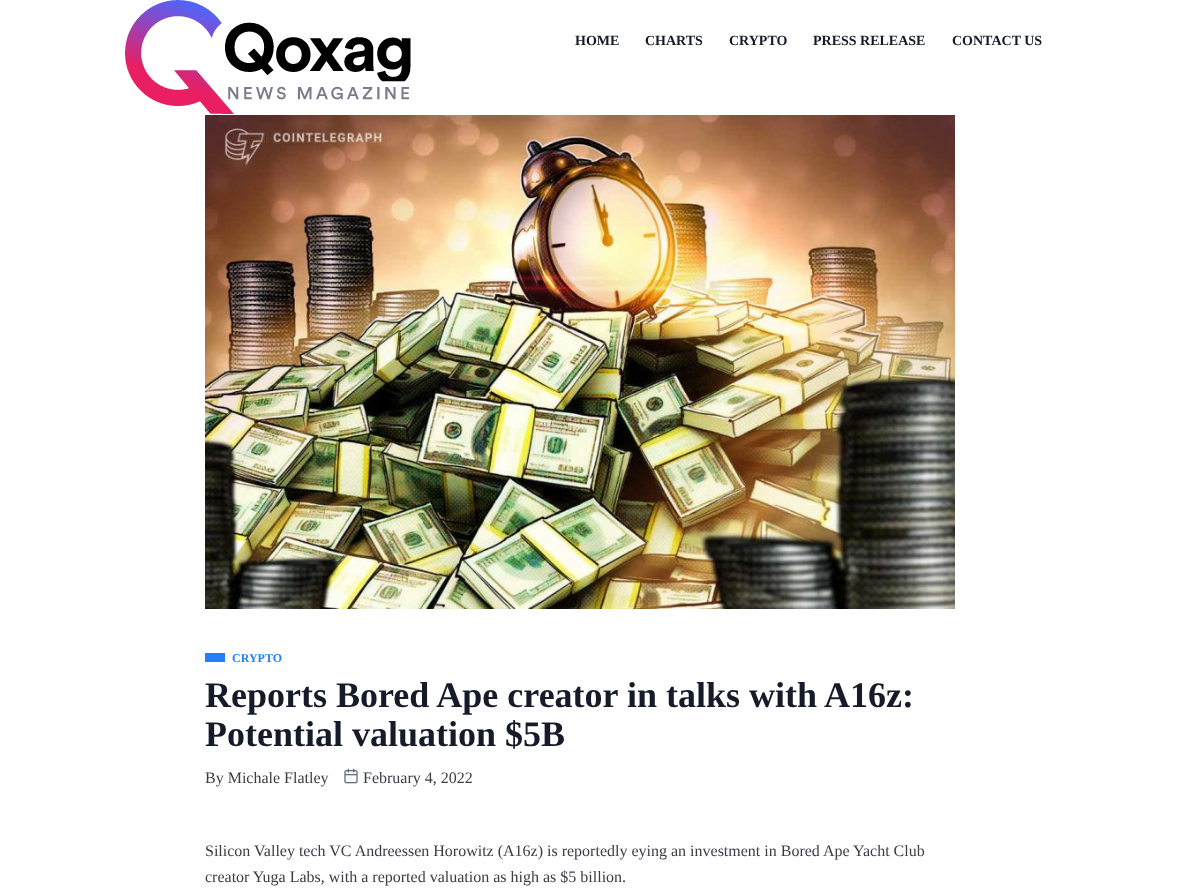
<svg xmlns="http://www.w3.org/2000/svg" width="1180" height="890">
<rect width="100%" height="100%" fill="#fff"/>
<image x="125" y="0" width="286" height="114" href="media/1.png"/>
<text x="575" y="45" style="font-family:Liberation Serif;font-size:14px;font-weight:bold;fill:#161b2a">HOME</text>
<text x="645" y="45" style="font-family:Liberation Serif;font-size:14px;font-weight:bold;fill:#161b2a">CHARTS</text>
<text x="729" y="45" style="font-family:Liberation Serif;font-size:14px;font-weight:bold;fill:#161b2a">CRYPTO</text>
<text x="813" y="45" style="font-family:Liberation Serif;font-size:14px;font-weight:bold;fill:#161b2a">PRESS RELEASE</text>
<text x="952" y="45" style="font-family:Liberation Serif;font-size:14px;font-weight:bold;fill:#161b2a">CONTACT US</text>
<image x="205" y="115" width="750" height="494" href="media/2.png"/>
<rect x="205" y="653" width="20" height="9" fill="#2380f9"/>
<text x="232" y="662" style="font-family:Liberation Serif;font-size:12px;font-weight:bold;fill:#2380f9">CRYPTO</text>
<text x="205" y="707" style="font-family:Liberation Serif;font-size:36px;font-weight:bold;fill:#161b2a">Reports Bored Ape creator in talks with A16z:</text>
<text x="205" y="746" style="font-family:Liberation Serif;font-size:36px;font-weight:bold;fill:#161b2a">Potential valuation $5B</text>
<text x="205" y="783" style="font-family:Liberation Serif;font-size:16px;fill:#3a3d43">By Michale Flatley</text>
<image x="344" y="768" width="14" height="16" href="media/3.png"/>
<text x="363" y="783" style="font-family:Liberation Serif;font-size:16px;fill:#3a3d43">February 4, 2022</text>
<text x="205" y="856" style="font-family:Liberation Serif;font-size:16px;fill:#3a3d43">Silicon Valley tech VC Andreessen Horowitz (A16z) is reportedly eying an investment in Bored Ape Yacht Club</text>
<text x="205" y="882" style="font-family:Liberation Serif;font-size:16px;fill:#3a3d43">creator Yuga Labs, with a reported valuation as high as $5 billion.</text>
</svg>
